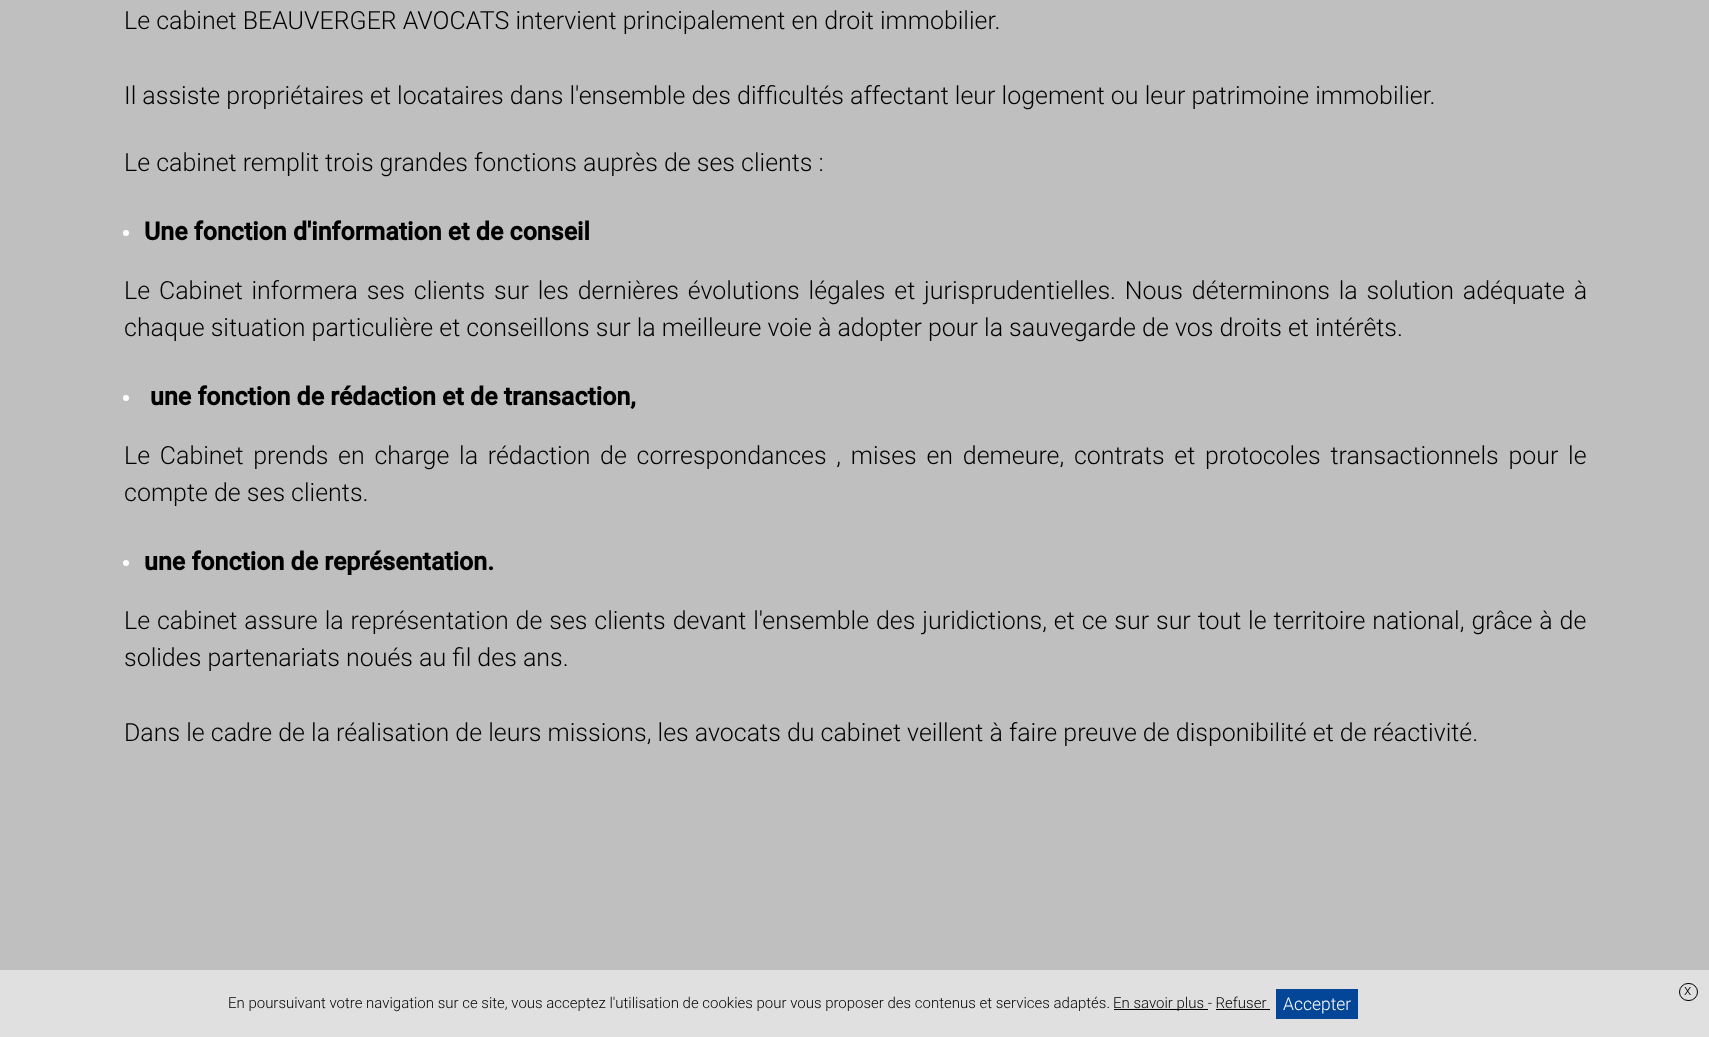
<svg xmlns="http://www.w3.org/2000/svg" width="1709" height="1037">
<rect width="100%" height="100%" fill="#bfbfbf"/>
<text x="124" y="29" style="font-family:Roboto;font-size:25px;font-weight:300;fill:#000">Le cabinet BEAUVERGER AVOCATS intervient principalement en droit immobilier.</text>
<text x="124" y="104" style="font-family:Roboto;font-size:25px;font-weight:300;fill:#000">Il assiste propriétaires et locataires dans l'ensemble des difficultés affectant leur logement ou leur patrimoine immobilier.</text>
<text x="124" y="171" style="font-family:Roboto;font-size:25px;font-weight:300;fill:#000">Le cabinet remplit trois grandes fonctions auprès de ses clients :</text>
<circle cx="126" cy="233" r="3" fill="#fff"/>
<text x="144" y="240" style="font-family:Roboto;font-size:25px;font-weight:bold;fill:#000">Une fonction d'information et de conseil</text>
<text x="124" y="299" word-spacing="2.75" style="font-family:Roboto;font-size:25px;font-weight:300;fill:#000">Le Cabinet informera ses clients sur les dernières évolutions légales et jurisprudentielles. Nous déterminons la solution adéquate à</text>
<text x="124" y="336" style="font-family:Roboto;font-size:25px;font-weight:300;fill:#000">chaque situation particulière et conseillons sur la meilleure voie à adopter pour la sauvegarde de vos droits et intérêts.</text>
<circle cx="126" cy="398" r="3" fill="#fff"/>
<text x="150" y="405" style="font-family:Roboto;font-size:25px;font-weight:bold;fill:#000">une fonction de rédaction et de transaction,</text>
<text x="124" y="464" word-spacing="3.6" style="font-family:Roboto;font-size:25px;font-weight:300;fill:#000">Le Cabinet prends en charge la rédaction de correspondances , mises en demeure, contrats et protocoles transactionnels pour le</text>
<text x="124" y="501" style="font-family:Roboto;font-size:25px;font-weight:300;fill:#000">compte de ses clients.</text>
<circle cx="126" cy="563" r="3" fill="#fff"/>
<text x="144" y="570" style="font-family:Roboto;font-size:25px;font-weight:bold;fill:#000">une fonction de représentation.</text>
<text x="124" y="629" word-spacing="0.8" style="font-family:Roboto;font-size:25px;font-weight:300;fill:#000">Le cabinet assure la représentation de ses clients devant l'ensemble des juridictions, et ce sur sur tout le territoire national, grâce à de</text>
<text x="124" y="666" style="font-family:Roboto;font-size:25px;font-weight:300;fill:#000">solides partenariats noués au fil des ans.</text>
<text x="124" y="741" style="font-family:Roboto;font-size:25px;font-weight:300;fill:#000">Dans le cadre de la réalisation de leurs missions, les avocats du cabinet veillent à faire preuve de disponibilité et de réactivité.</text>
<rect y="970" width="1709" height="67" fill="#e0e0e0"/>
<rect x="1679.5" y="983.5" width="18" height="17" rx="8.5" fill="none" stroke="#000"/>
<text x="1684" y="995" style="font-family:Roboto;font-size:15px;font-weight:300;fill:#000">x</text>
<text x="228" y="1008" style="font-family:Roboto;font-size:15px;font-weight:300;fill:#000">En poursuivant votre navigation sur ce site, vous acceptez l'utilisation de cookies pour vous proposer des contenus et services adaptés.</text>
<rect x="1114" y="1009" width="94" height="1" fill="#000"/>
<text x="1113" y="1008" style="font-family:Roboto;font-size:15px;font-weight:300;fill:#000">En savoir plus - Refuser</text>
<rect x="1276" y="989" width="82" height="30" fill="#034597"/>
<text x="1283" y="1010" style="font-family:Roboto;font-size:17.5px;font-weight:300;fill:#fff">Accepter</text>
<rect x="1216" y="1009" width="54" height="1" fill="#000"/>
</svg>
